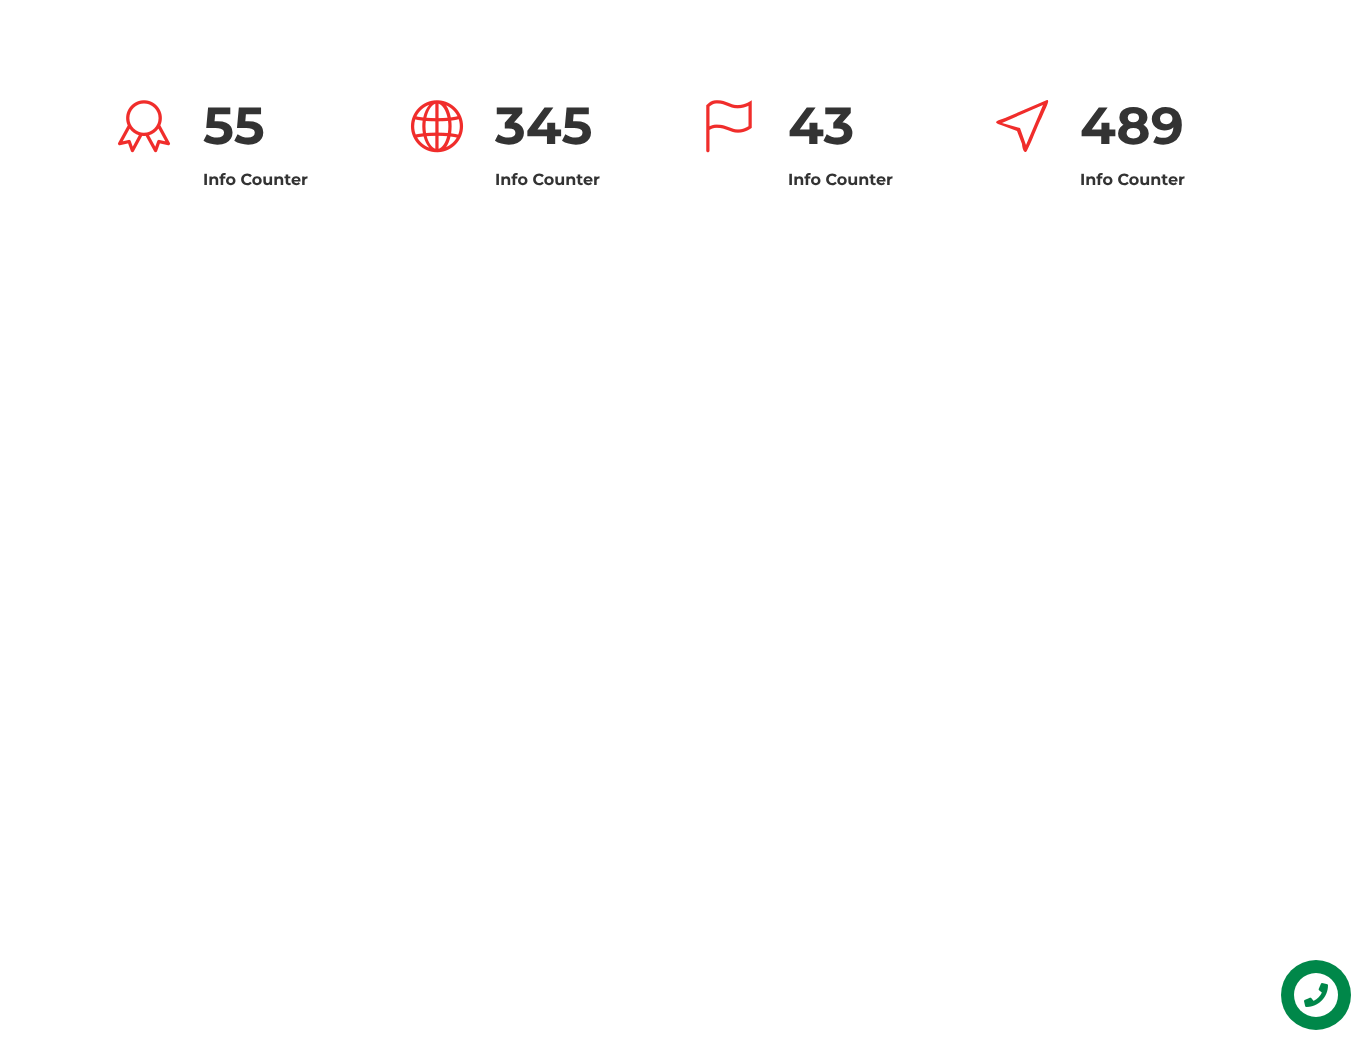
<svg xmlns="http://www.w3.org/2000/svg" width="1371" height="1050">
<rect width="100%" height="100%" fill="#fff"/>
<image x="117" y="100" width="54" height="53" href="media/1.png"/>
<text x="203" y="144" style="font-family:Montserrat;font-size:52px;font-weight:bold;fill:#333">55</text>
<text x="203" y="185" style="font-family:Montserrat;font-size:16px;font-weight:bold;fill:#333">Info Counter</text>
<image x="410" y="100" width="54" height="53" href="media/2.png"/>
<text x="495" y="144" style="font-family:Montserrat;font-size:52px;font-weight:bold;fill:#333">345</text>
<text x="495" y="185" style="font-family:Montserrat;font-size:16px;font-weight:bold;fill:#333">Info Counter</text>
<image x="706" y="100" width="46" height="53" href="media/3.png"/>
<text x="788" y="144" style="font-family:Montserrat;font-size:52px;font-weight:bold;fill:#333">43</text>
<text x="788" y="185" style="font-family:Montserrat;font-size:16px;font-weight:bold;fill:#333">Info Counter</text>
<path d="M1043 105l-17 40l-6-17l-18-5zm4-5l-42 18c-5 2-15 4-4 7l16 6l5 13c0 1 1 9 4 8c2-1 13-30 15-33c6-14 9-19 6-19z" fill="#f02d2b"/>
<text x="1080" y="144" style="font-family:Montserrat;font-size:52px;font-weight:bold;fill:#333">489</text>
<text x="1080" y="185" style="font-family:Montserrat;font-size:16px;font-weight:bold;fill:#333">Info Counter</text>
<circle cx="1316" cy="995" r="35" fill="#008749"/>
<circle cx="1316" cy="995" r="22" fill="#fff"/>
<image x="1304" y="983" width="24" height="24" href="media/4.png"/>
</svg>
